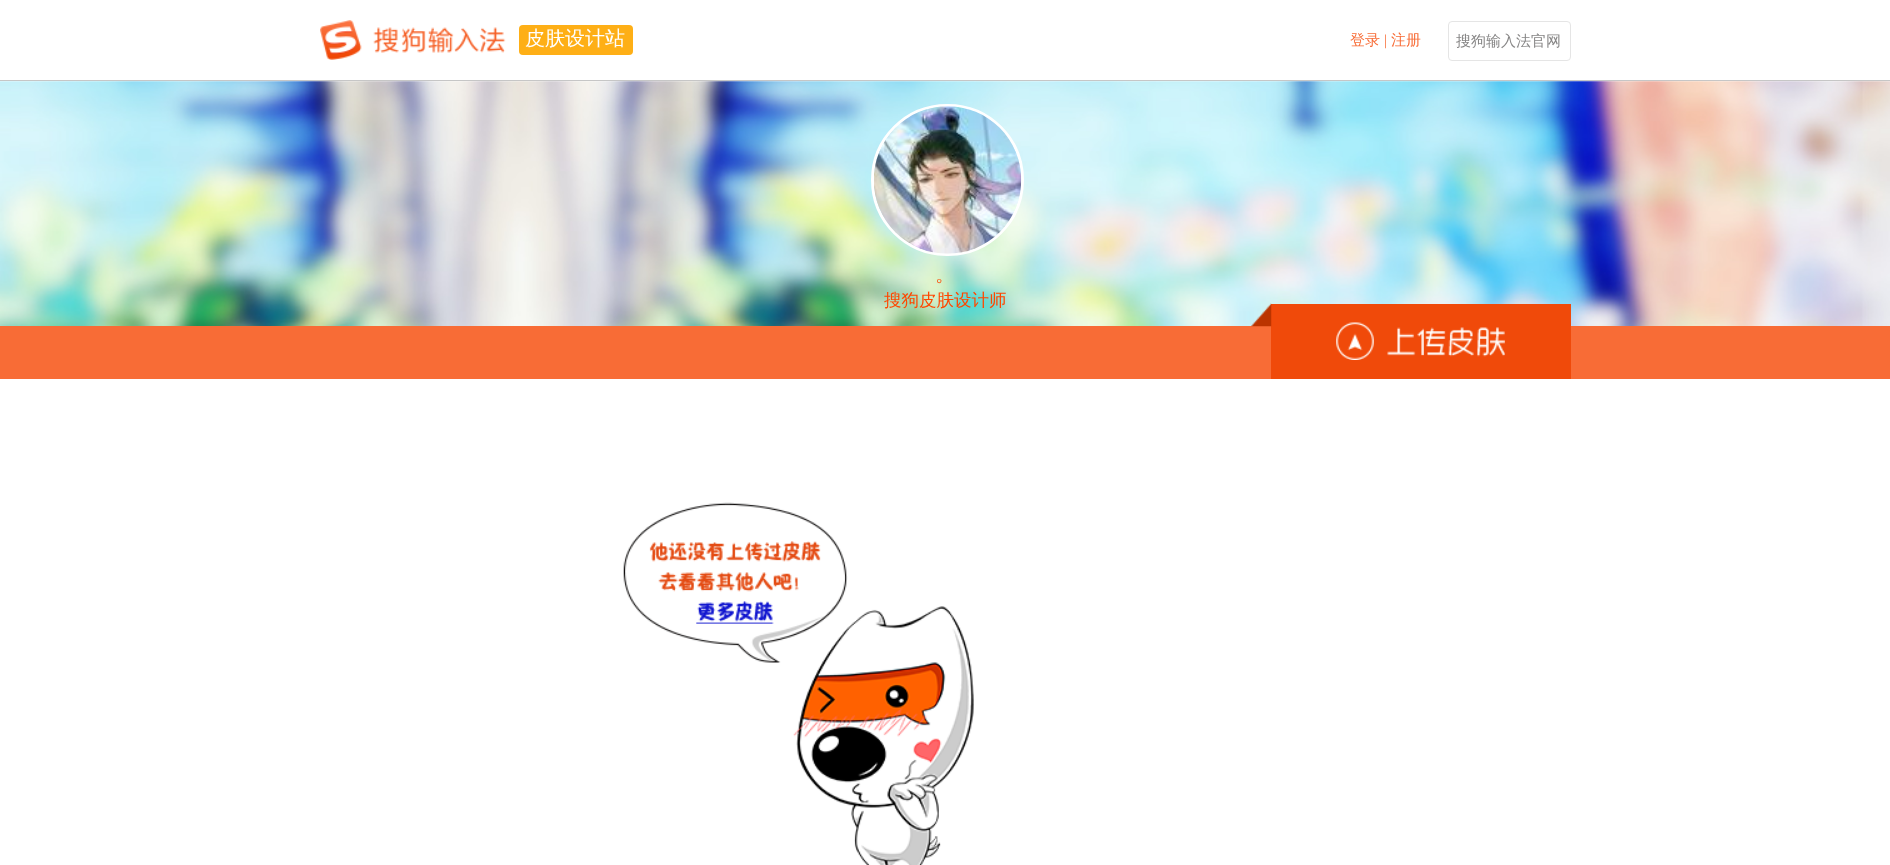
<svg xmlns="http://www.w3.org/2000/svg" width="1890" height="865">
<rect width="100%" height="100%" fill="#fff"/>
<rect y="80" width="1890" height="1" fill="#c6c6c6"/>
<image x="320" y="20" width="186" height="40" href="media/1.png"/>
<rect x="519" y="25" width="114" height="30" rx="4" fill="#feaf16"/>
<text x="525" y="45" style="font-family:WenQuanYi Zen Hei;font-size:20px;font-weight:500;fill:#fff">皮肤设计站</text>
<text x="1350" y="45" style="font-family:WenQuanYi Zen Hei;font-size:15px;font-weight:500;fill:#f86c36">登录</text>
<text x="1384" y="45" style="font-family:Liberation Serif;font-size:15px;fill:#f86c36">|</text>
<text x="1391" y="45" style="font-family:WenQuanYi Zen Hei;font-size:15px;font-weight:500;fill:#f86c36">注册</text>
<rect x="1448.5" y="21.5" width="122" height="39" rx="3.5" fill="none" stroke="#e5e5e5"/>
<text x="1456" y="46" style="font-family:WenQuanYi Zen Hei;font-size:15px;font-weight:500;fill:#878686">搜狗输入法官网</text>
<image x="0" y="81" width="1890" height="245" href="media/2.png"/>
<rect x="872.5" y="105.5" width="150" height="149" rx="74.5" fill="none" stroke="#fff" stroke-width="3"/>
<image x="874" y="106" width="148" height="148" href="media/3.png"/>
<text x="935" y="281" style="font-family:WenQuanYi Zen Hei;font-size:20px;font-weight:500;fill:#ff4700">。</text>
<text x="884" y="306" style="font-family:WenQuanYi Zen Hei;font-size:17.5px;font-weight:500;fill:#ff4700">搜狗皮肤设计师</text>
<rect y="326" width="1890" height="53" fill="#f86c36"/>
<rect x="1271" y="304" width="300" height="75" fill="#f04a0a"/>
<image x="1251" y="303" width="21" height="24" href="media/4.png"/>
<image x="1336" y="322" width="169" height="38" href="media/5.png"/>
<image x="623" y="502" width="351" height="363" href="media/6.png"/>
</svg>
